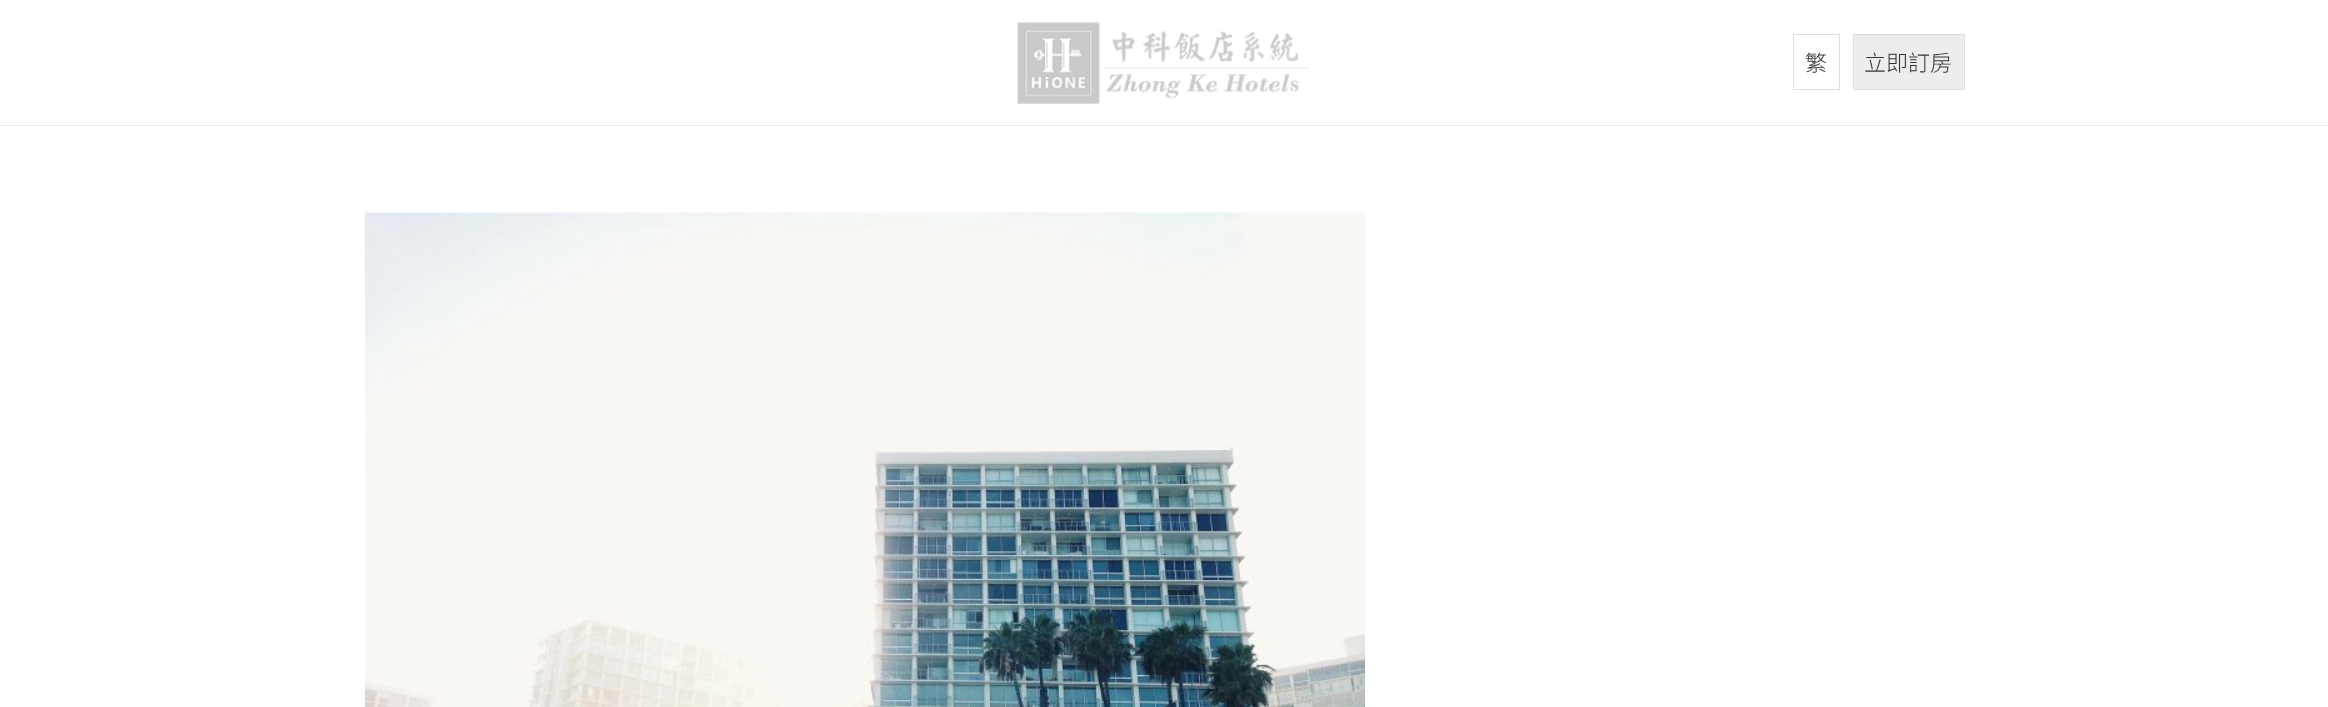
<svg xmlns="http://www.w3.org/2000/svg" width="2328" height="707">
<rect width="100%" height="100%" fill="#fff"/>
<path d="M0 125v1h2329v-125v124z" fill="#ebebeb"/>
<image x="1017" y="22" width="293" height="82" href="media/1.png"/>
<rect x="1793.5" y="34.5" width="46" height="55" fill="none" stroke="#ddd"/>
<text x="1805" y="71" style="font-family:Noto Sans TC;font-size:22px;font-weight:300;fill:#333">繁</text>
<rect x="1853.5" y="34.5" width="111" height="55" fill="#ededed" stroke="#ddd"/>
<text x="1864" y="71" style="font-family:Noto Sans TC;font-size:22px;font-weight:300;fill:#333">立即訂房</text>
<image x="365" y="212" width="1000" height="495" href="media/2.png"/>
</svg>
